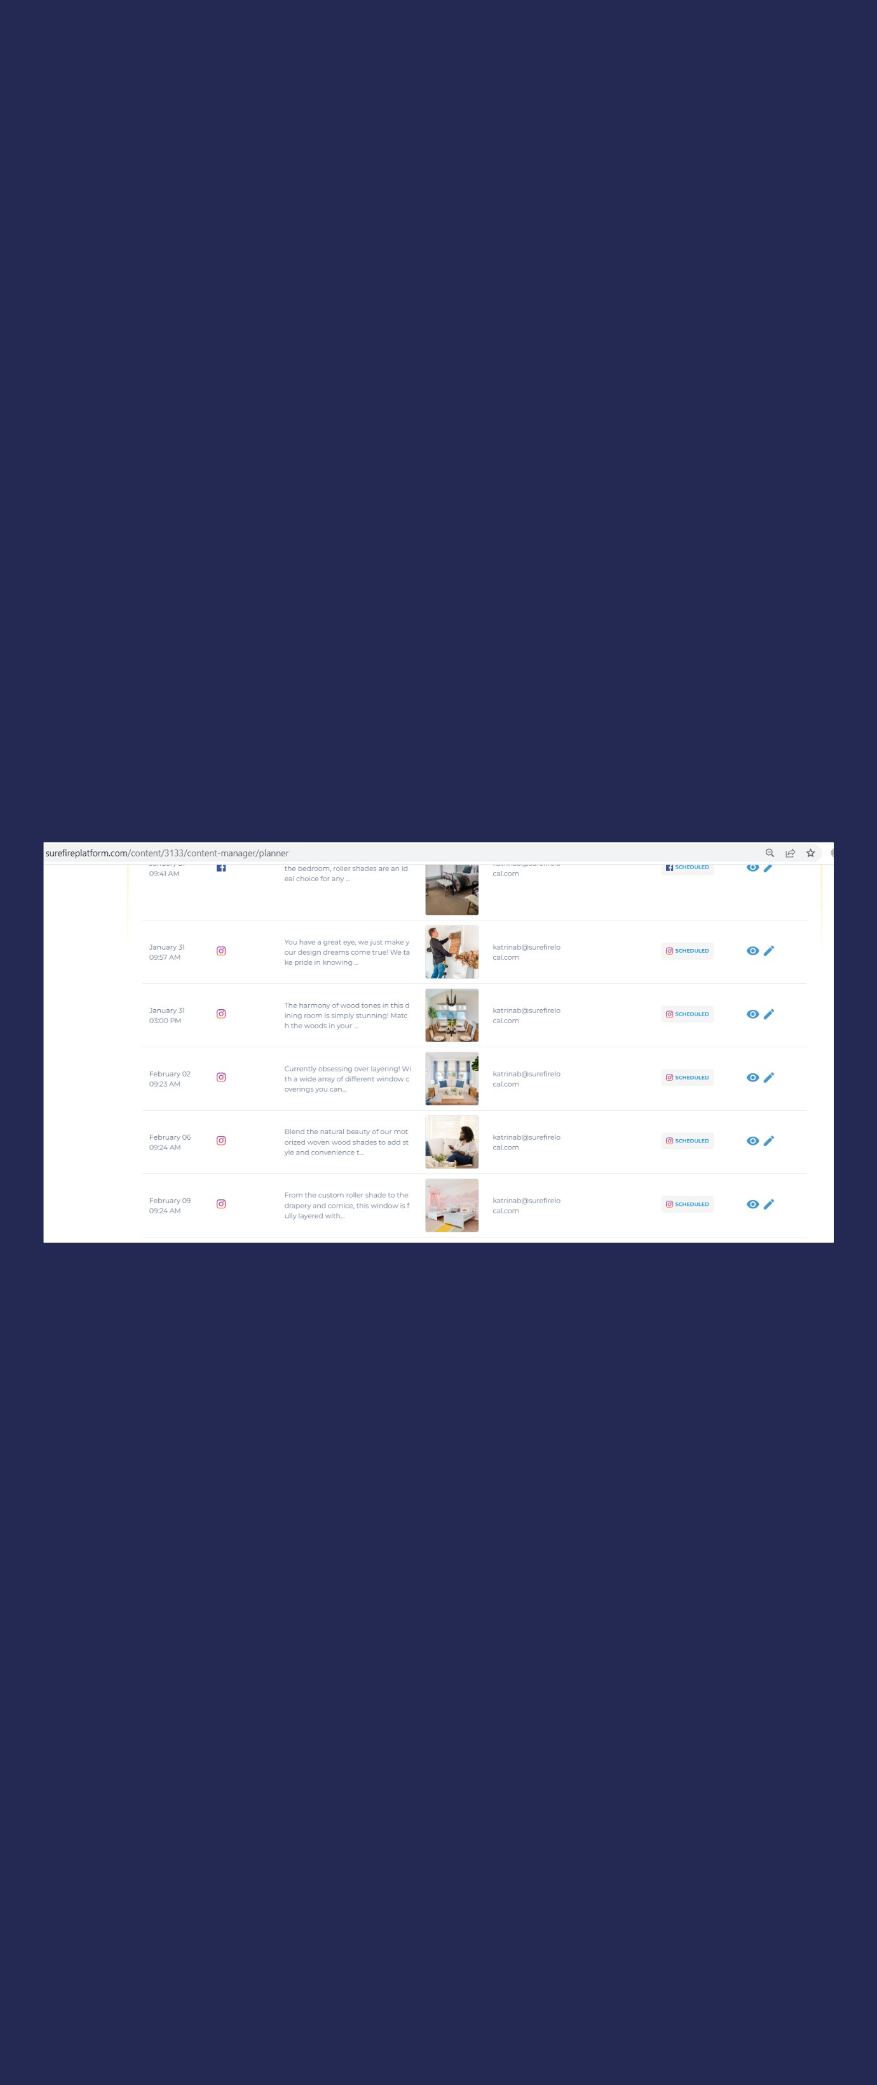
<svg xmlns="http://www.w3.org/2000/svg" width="877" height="2085">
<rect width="100%" height="100%" fill="#232953"/>
<image x="43" y="842" width="791" height="401" href="media/1.png"/>
<image x="43" y="842" width="791" height="401" href="media/2.png"/>
</svg>
